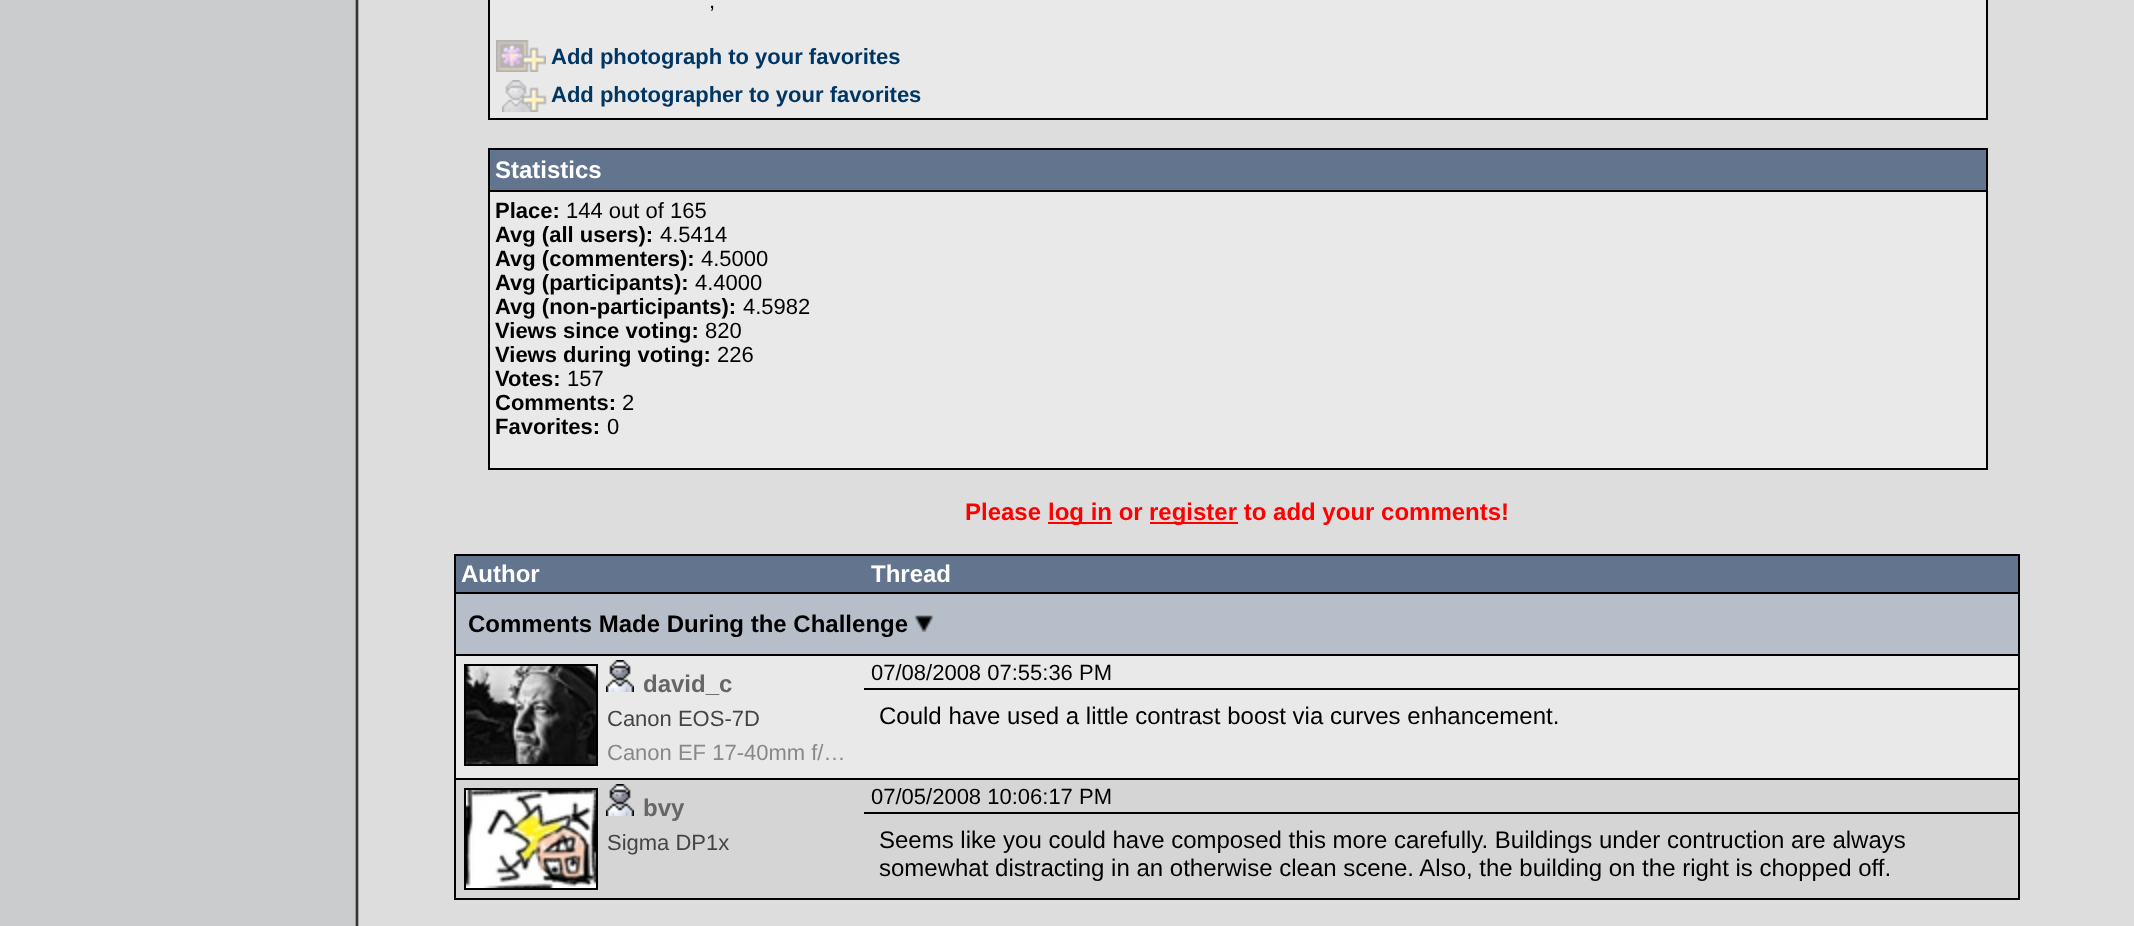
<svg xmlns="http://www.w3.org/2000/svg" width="2134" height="926">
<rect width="100%" height="100%" fill="#ddd"/>
<image x="0" y="0" width="359" height="926" href="media/1.png"/>
<rect x="488" width="1500" height="120" fill="#000"/>
<rect x="490" width="1496" height="118" fill="#e9e9e9"/>
<text x="709" y="8" style="font-family:Liberation Sans;font-size:22px;fill:#000">,</text>
<image x="496" y="40" width="50" height="32" href="media/2.png"/>
<text x="551" y="64" style="font-family:Liberation Sans;font-size:22px;font-weight:bold;fill:#003664">Add photograph to your favorites</text>
<image x="502" y="80" width="45" height="32" href="media/3.png"/>
<text x="551" y="102" style="font-family:Liberation Sans;font-size:22px;font-weight:bold;fill:#003664">Add photographer to your favorites</text>
<rect x="488" y="148" width="1500" height="322" fill="#000"/>
<rect x="490" y="150" width="1496" height="40" fill="#63748f"/>
<text x="495" y="178" style="font-family:Liberation Sans;font-size:24px;font-weight:bold;fill:#fff">Statistics</text>
<rect x="490" y="192" width="1496" height="276" fill="#e9e9e9"/>
<text x="495" y="218" style="font-family:Liberation Sans;font-size:22px;font-weight:bold;fill:#000">Place:</text>
<text x="566" y="218" style="font-family:Liberation Sans;font-size:22px;fill:#000">144 out of 165</text>
<text x="495" y="242" style="font-family:Liberation Sans;font-size:22px;font-weight:bold;fill:#000">Avg (all users):</text>
<text x="660" y="242" style="font-family:Liberation Sans;font-size:22px;fill:#000">4.5414</text>
<text x="495" y="266" style="font-family:Liberation Sans;font-size:22px;font-weight:bold;fill:#000">Avg (commenters):</text>
<text x="701" y="266" style="font-family:Liberation Sans;font-size:22px;fill:#000">4.5000</text>
<text x="495" y="290" style="font-family:Liberation Sans;font-size:22px;font-weight:bold;fill:#000">Avg (participants):</text>
<text x="695" y="290" style="font-family:Liberation Sans;font-size:22px;fill:#000">4.4000</text>
<text x="495" y="314" style="font-family:Liberation Sans;font-size:22px;font-weight:bold;fill:#000">Avg (non-participants):</text>
<text x="743" y="314" style="font-family:Liberation Sans;font-size:22px;fill:#000">4.5982</text>
<text x="495" y="338" style="font-family:Liberation Sans;font-size:22px;font-weight:bold;fill:#000">Views since voting:</text>
<text x="705" y="338" style="font-family:Liberation Sans;font-size:22px;fill:#000">820</text>
<text x="495" y="362" style="font-family:Liberation Sans;font-size:22px;font-weight:bold;fill:#000">Views during voting:</text>
<text x="717" y="362" style="font-family:Liberation Sans;font-size:22px;fill:#000">226</text>
<text x="495" y="386" style="font-family:Liberation Sans;font-size:22px;font-weight:bold;fill:#000">Votes:</text>
<text x="567" y="386" style="font-family:Liberation Sans;font-size:22px;fill:#000">157</text>
<text x="495" y="410" style="font-family:Liberation Sans;font-size:22px;font-weight:bold;fill:#000">Comments:</text>
<text x="622" y="410" style="font-family:Liberation Sans;font-size:22px;fill:#000">2</text>
<text x="495" y="434" style="font-family:Liberation Sans;font-size:22px;font-weight:bold;fill:#000">Favorites:</text>
<text x="607" y="434" style="font-family:Liberation Sans;font-size:22px;fill:#000">0</text>
<text x="965" y="520" style="font-family:Liberation Sans;font-size:24px;font-weight:bold;fill:#f00">Please</text>
<rect x="1048" y="522" width="64" height="2" fill="#f00"/>
<text x="1048" y="520" style="font-family:Liberation Sans;font-size:24px;font-weight:bold;fill:#f00">log in or</text>
<rect x="1150" y="522" width="88" height="2" fill="#f00"/>
<text x="1149" y="520" style="font-family:Liberation Sans;font-size:24px;font-weight:bold;fill:#f00">register to add your comments!</text>
<rect x="454" y="554" width="1566" height="346" fill="#000"/>
<rect x="456" y="556" width="1562" height="36" fill="#63748f"/>
<text x="461" y="582" style="font-family:Liberation Sans;font-size:24px;font-weight:bold;fill:#fff">Author</text>
<text x="871" y="582" style="font-family:Liberation Sans;font-size:24px;font-weight:bold;fill:#fff">Thread</text>
<rect x="456" y="594" width="1562" height="60" fill="#b6beca"/>
<text x="468" y="632" style="font-family:Liberation Sans;font-size:24px;font-weight:bold;fill:#000">Comments Made During the Challenge</text>
<image x="914" y="615" width="20" height="17" href="media/4.png"/>
<rect x="864" y="656" width="1154" height="32" fill="#e9e9e9"/>
<rect x="456" y="656" width="408" height="34" fill="#e9e9e9"/>
<rect x="456" y="690" width="1562" height="88" fill="#e9e9e9"/>
<rect x="465" y="665" width="132" height="100" fill="none" stroke="#000" stroke-width="2"/>
<image x="466" y="666" width="130" height="98" href="media/5.png"/>
<image x="606" y="660" width="28" height="32" href="media/6.png"/>
<text x="643" y="692" style="font-family:Liberation Sans;font-size:24px;font-weight:bold;fill:#666">david_c</text>
<text x="607" y="726" style="font-family:Liberation Sans;font-size:22px;fill:#444">Canon EOS-7D</text>
<text x="607" y="760" style="font-family:Liberation Sans;font-size:22px;fill:#888">Canon EF 17-40mm f/…</text>
<text x="871" y="680" style="font-family:Liberation Sans;font-size:22px;fill:#000">07/08/2008 07:55:36 PM</text>
<text x="879" y="724" style="font-family:Liberation Sans;font-size:24px;fill:#000">Could have used a little contrast boost via curves enhancement.</text>
<rect x="864" y="780" width="1154" height="32" fill="#d5d5d5"/>
<rect x="456" y="780" width="408" height="34" fill="#d5d5d5"/>
<rect x="456" y="814" width="1562" height="84" fill="#d5d5d5"/>
<rect x="465" y="789" width="132" height="100" fill="none" stroke="#000" stroke-width="2"/>
<image x="466" y="790" width="130" height="98" href="media/7.png"/>
<image x="606" y="784" width="28" height="32" href="media/8.png"/>
<text x="643" y="816" style="font-family:Liberation Sans;font-size:24px;font-weight:bold;fill:#666">bvy</text>
<text x="607" y="850" style="font-family:Liberation Sans;font-size:22px;fill:#444">Sigma DP1x</text>
<text x="871" y="804" style="font-family:Liberation Sans;font-size:22px;fill:#000">07/05/2008 10:06:17 PM</text>
<text x="879" y="848" style="font-family:Liberation Sans;font-size:24px;fill:#000">Seems like you could have composed this more carefully. Buildings under contruction are always</text>
<text x="879" y="876" style="font-family:Liberation Sans;font-size:24px;fill:#000">somewhat distracting in an otherwise clean scene. Also, the building on the right is chopped off.</text>
</svg>
